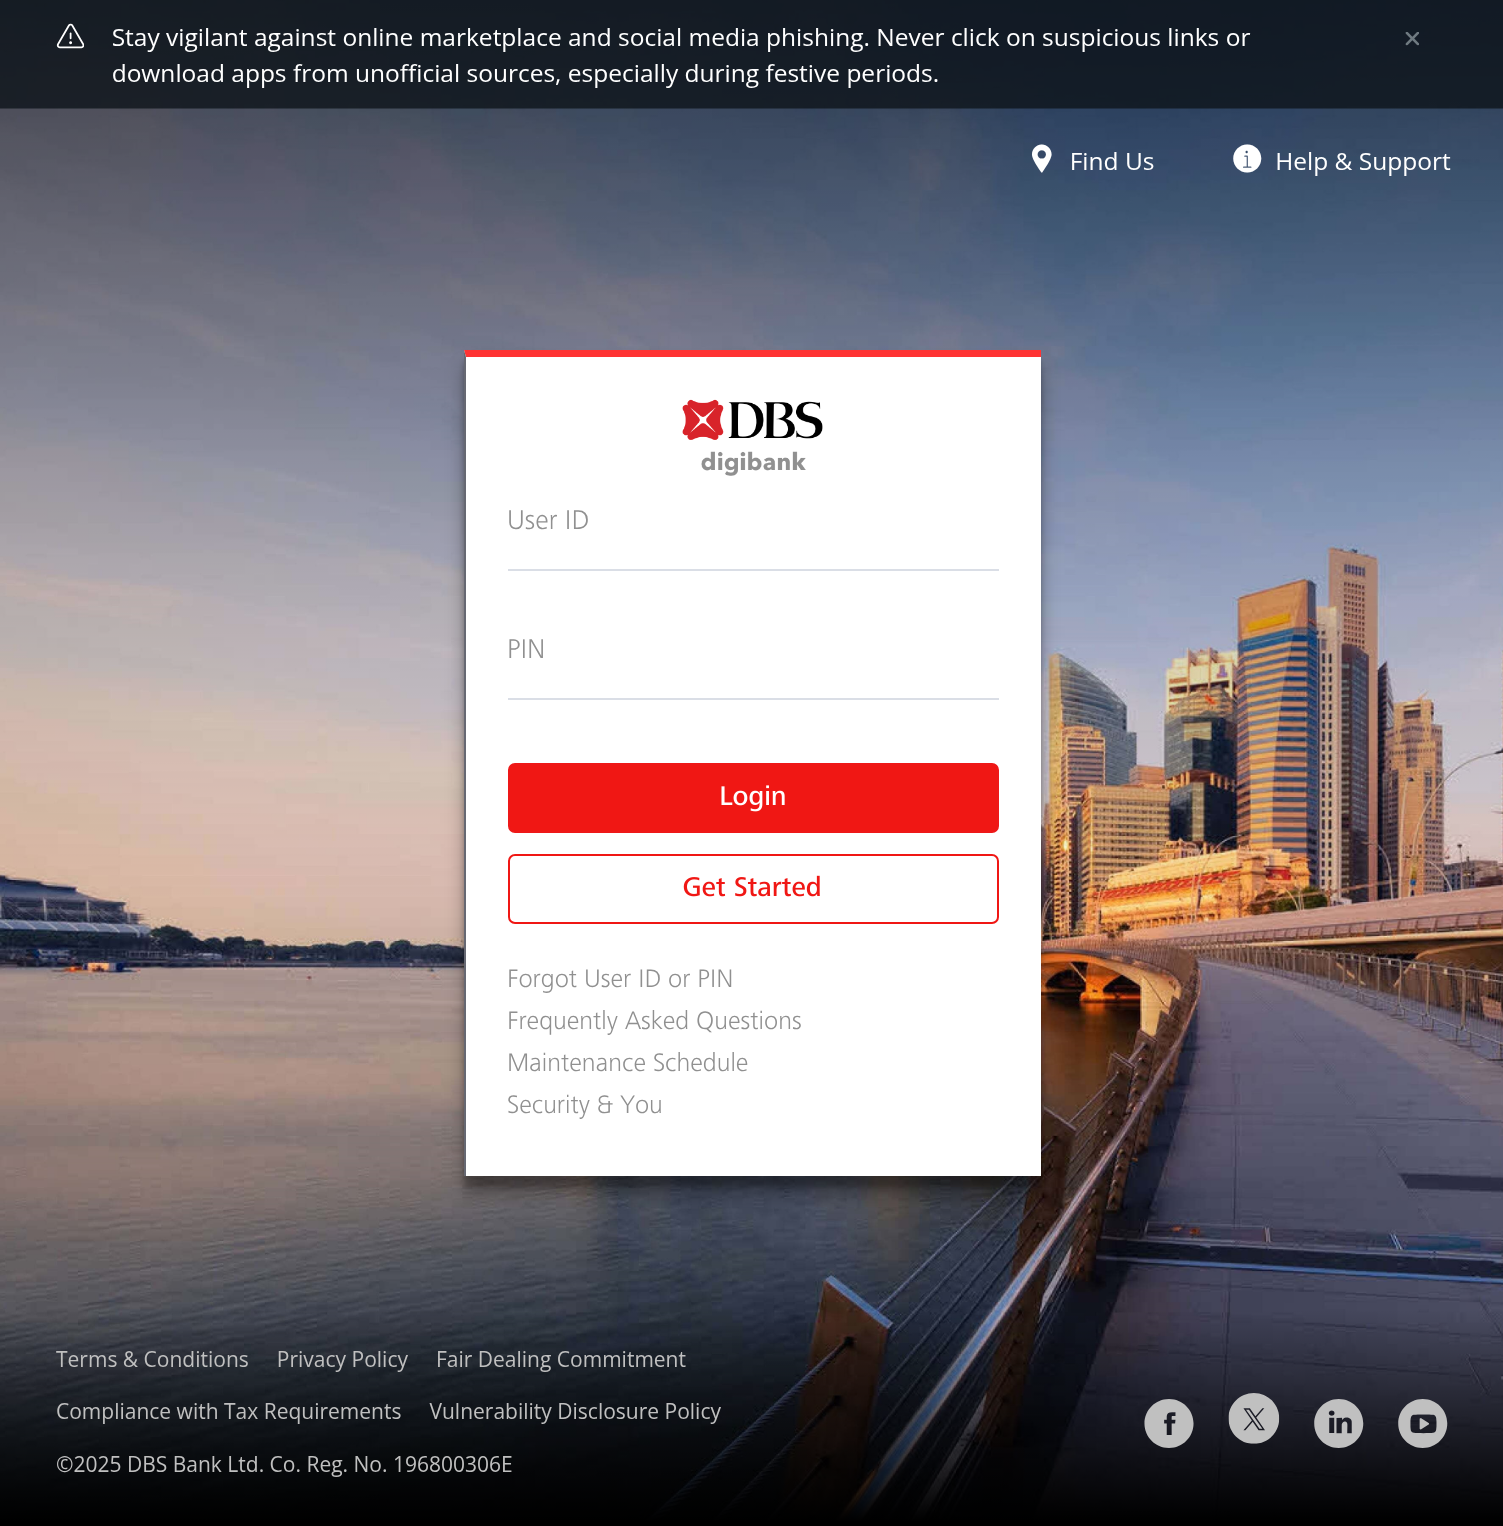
<svg xmlns="http://www.w3.org/2000/svg" width="1503" height="1526">
<rect width="100%" height="100%" fill="#fff"/>
<image x="0" y="0" width="1503" height="1526" href="media/1.png"/>
<rect x="464" y="361" width="577" height="826" fill="#0000003b" filter="blur(2.5px)"/>
<rect x="464" y="368" width="577" height="826" fill="#0000004d" filter="blur(9px)"/>
<rect x="464" y="350" width="577" height="826" fill="#fff"/>
<path d="M464 350h577v7h-575z" fill="#f33"/>
<path d="M464 1176v-826l2 7v819z" fill="#666872"/>
<image x="682" y="399" width="141" height="77" href="media/2.png"/>
<text x="507" y="529" style="font-family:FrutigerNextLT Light;font-size:28px;font-weight:300;fill:#909090">User ID</text>
<rect x="508" y="569" width="491" height="2" fill="#dadee6"/>
<text x="507" y="658" style="font-family:FrutigerNextLT Light;font-size:28px;font-weight:300;fill:#909090">PIN</text>
<rect x="508" y="698" width="491" height="2" fill="#dadee6"/>
<rect x="509" y="764" width="489" height="68" rx="6" fill="#f01714" stroke="#ee1818" stroke-width="2"/>
<image x="721" y="785" width="64" height="27" href="media/3.png"/>
<rect x="509" y="855" width="489" height="68" rx="6" fill="none" stroke="#f01714" stroke-width="2"/>
<image x="683" y="875" width="137" height="22" href="media/4.png"/>
<text x="507" y="987" style="font-family:FrutigerNextLT Light;font-size:26.25px;font-weight:300;fill:#909090">Forgot User ID or PIN</text>
<text x="507" y="1029" style="font-family:FrutigerNextLT Light;font-size:26.25px;font-weight:300;fill:#909090">Frequently Asked Questions</text>
<text x="507" y="1071" style="font-family:FrutigerNextLT Light;font-size:26.25px;font-weight:300;fill:#909090">Maintenance Schedule</text>
<text x="507" y="1113" style="font-family:FrutigerNextLT Light;font-size:26.25px;font-weight:300;fill:#909090">Security &amp; You</text>
</svg>
